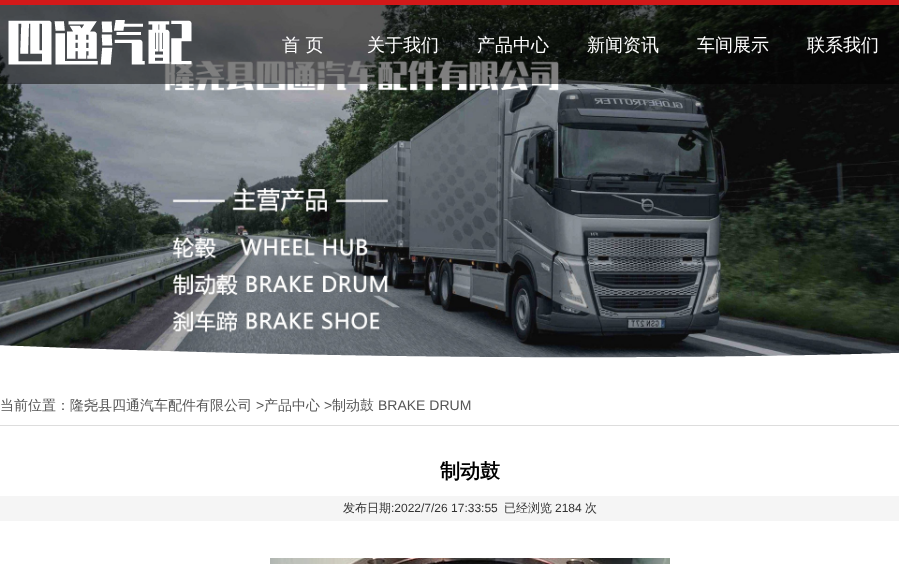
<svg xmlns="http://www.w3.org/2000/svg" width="899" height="564">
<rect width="100%" height="100%" fill="#fff"/>
<image x="0" y="5" width="899" height="353" href="media/1.png"/>
<rect y="5" width="899" height="79" fill="#00000080"/>
<rect width="899" height="5" fill="#d31919"/>
<image x="8" y="20" width="184" height="45" href="media/2.png"/>
<text x="282" y="51" style="font-family:WenQuanYi Zen Hei;font-size:18px;font-weight:500;fill:#fff">首 页</text>
<text x="367" y="51" style="font-family:WenQuanYi Zen Hei;font-size:18px;font-weight:500;fill:#fff">关于我们</text>
<text x="477" y="51" style="font-family:WenQuanYi Zen Hei;font-size:18px;font-weight:500;fill:#fff">产品中心</text>
<text x="587" y="51" style="font-family:WenQuanYi Zen Hei;font-size:18px;font-weight:500;fill:#fff">新闻资讯</text>
<text x="697" y="51" style="font-family:WenQuanYi Zen Hei;font-size:18px;font-weight:500;fill:#fff">车间展示</text>
<text x="807" y="51" style="font-family:WenQuanYi Zen Hei;font-size:18px;font-weight:500;fill:#fff">联系我们</text>
<image x="0" y="345" width="899" height="20" href="media/3.png"/>
<rect y="425" width="899" height="1" fill="#ddd"/>
<text x="0" y="410" style="font-family:WenQuanYi Zen Hei;font-size:14px;font-weight:500;fill:#555">当前位置：隆尧县四通汽车配件有限公司</text>
<text x="256" y="410" style="font-family:Liberation Sans;font-size:14px;fill:#555">&gt;</text>
<text x="264" y="410" style="font-family:WenQuanYi Zen Hei;font-size:14px;font-weight:500;fill:#555">产品中心</text>
<text x="324" y="410" style="font-family:Liberation Sans;font-size:14px;fill:#555">&gt;</text>
<text x="332" y="410" style="font-family:WenQuanYi Zen Hei;font-size:14px;font-weight:500;fill:#555">制动鼓</text>
<text x="378" y="410" style="font-family:Liberation Sans;font-size:14px;fill:#555">BRAKE DRUM</text>
<text x="440" y="478" style="font-family:WenQuanYi Zen Hei;font-size:20px;font-weight:bold;fill:#000">制动鼓</text>
<rect y="496" width="899" height="25" fill="#f5f5f5"/>
<text x="343" y="512" style="font-family:WenQuanYi Zen Hei;font-size:12px;font-weight:500;fill:#333">发布日期</text>
<text x="391" y="512" style="font-family:Liberation Sans;font-size:12px;fill:#333">:2022/7/26 17:33:55</text>
<text x="504" y="512" style="font-family:WenQuanYi Zen Hei;font-size:12px;font-weight:500;fill:#333">已经浏览</text>
<text x="555" y="512" style="font-family:Liberation Sans;font-size:12px;fill:#333">2184</text>
<text x="585" y="512" style="font-family:WenQuanYi Zen Hei;font-size:12px;font-weight:500;fill:#333">次</text>
<image x="270" y="558" width="400" height="6" href="media/4.png"/>
</svg>
